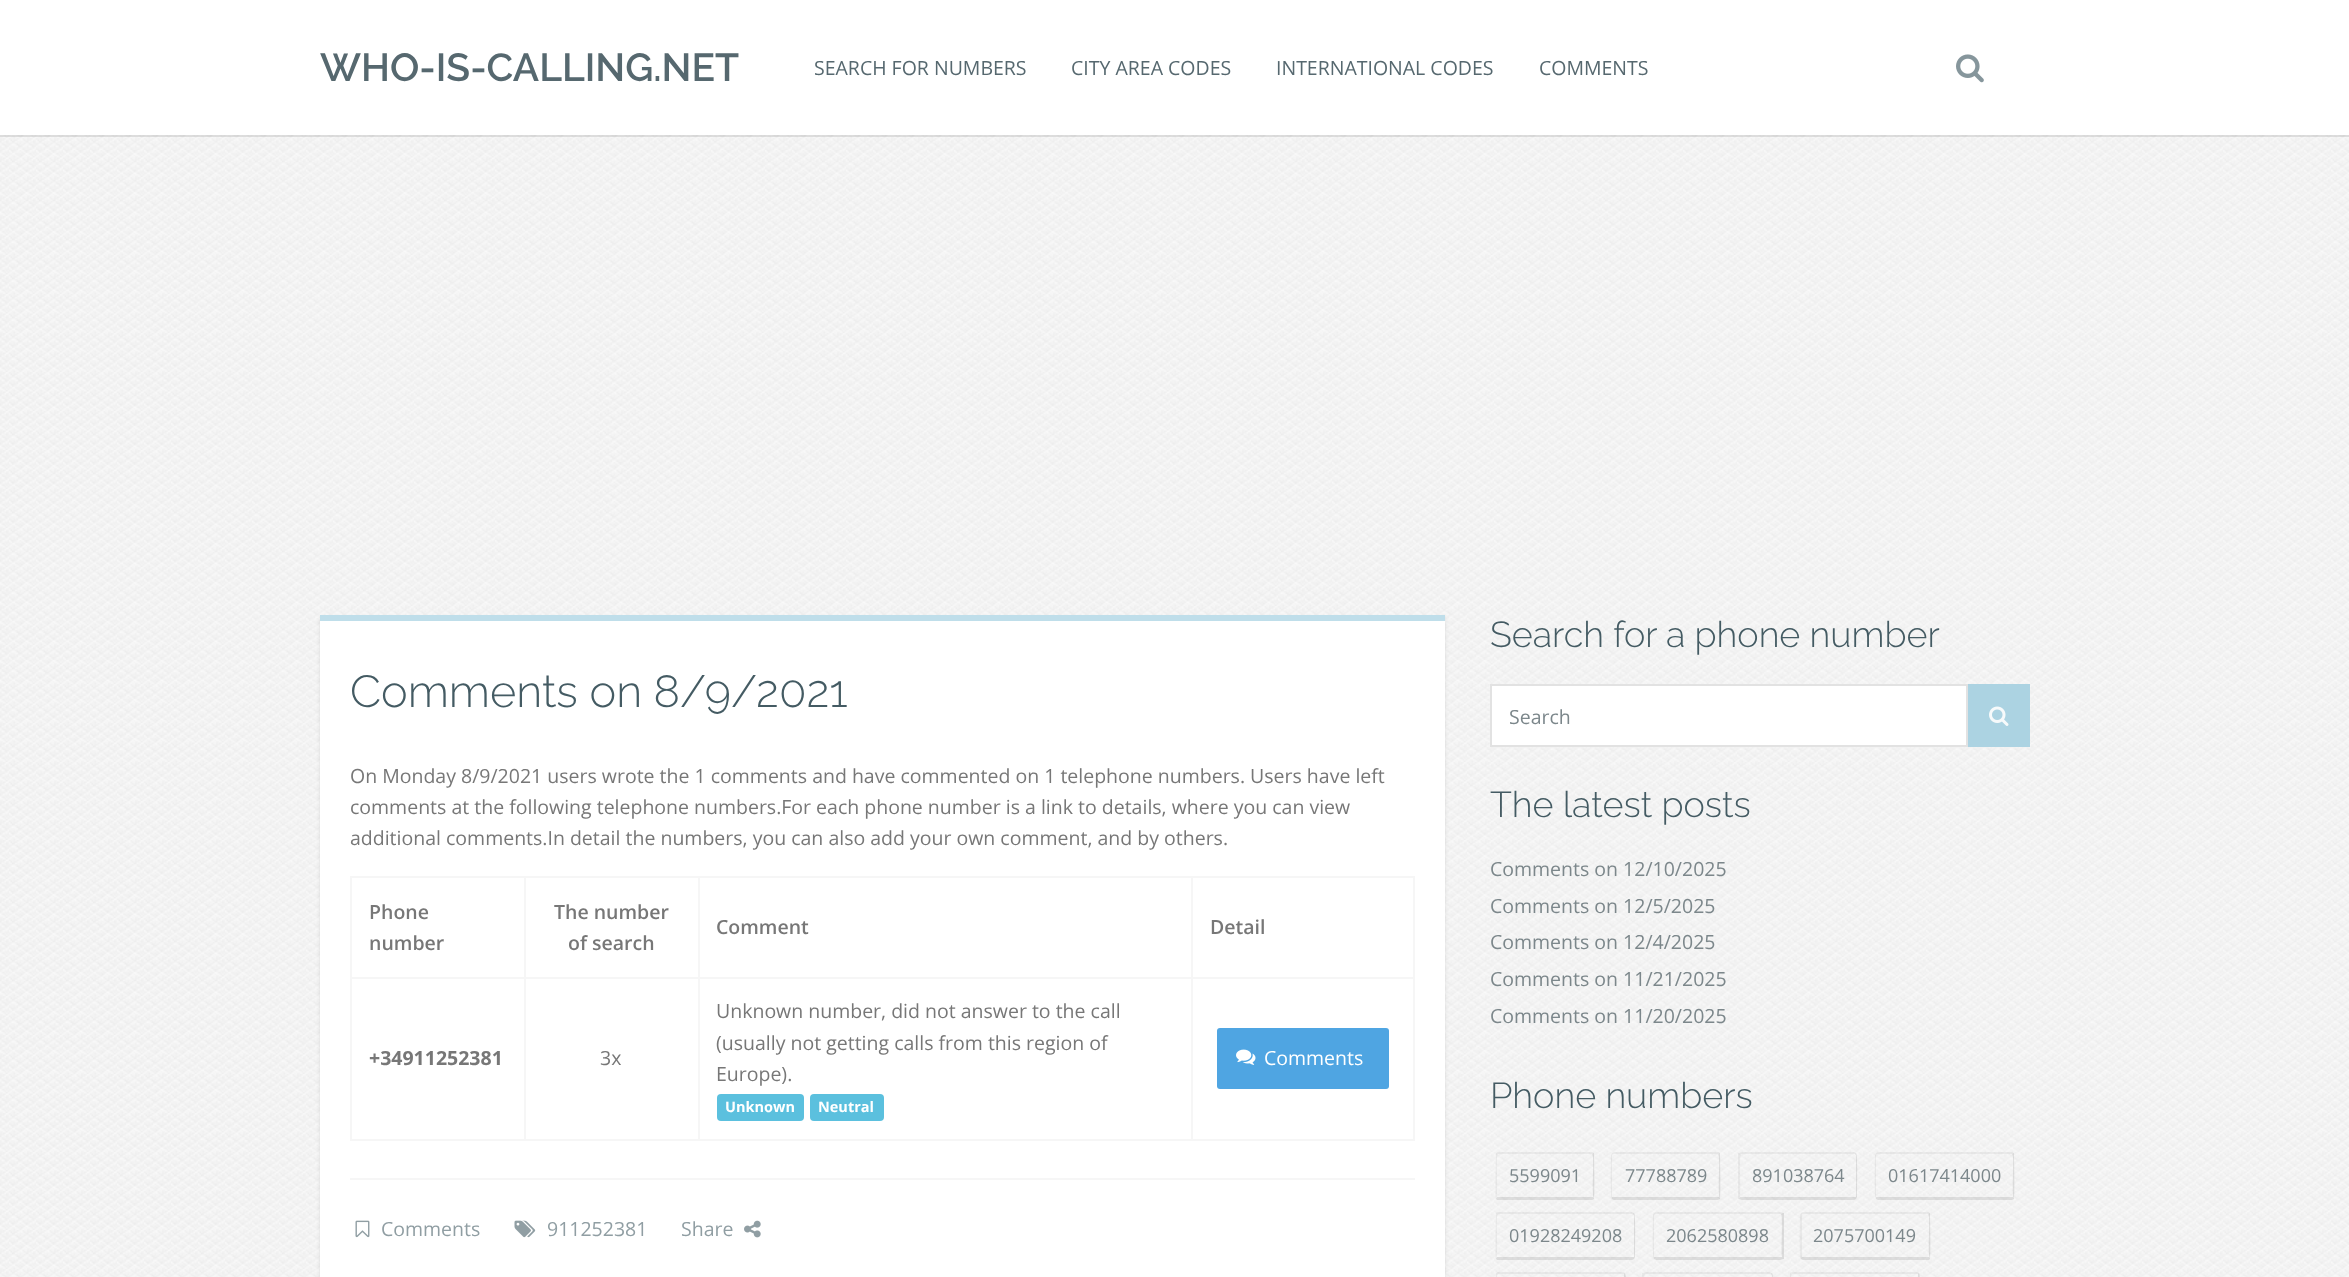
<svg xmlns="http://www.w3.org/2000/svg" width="2349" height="1277">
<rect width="100%" height="100%" fill="#fff"/>
<image x="0" y="135" width="2349" height="1142" href="media/1.png"/>
<rect y="135" width="2349" height="2" fill="#0000001a"/>
<text x="320" y="81" style="font-family:Raleway;font-size:39px;font-weight:600;fill:#56686f">WHO-IS-CALLING.NET</text>
<text x="814" y="75" style="font-family:Open Sans;font-size:19.5px;fill:#56686f">SEARCH FOR NUMBERS</text>
<text x="1071" y="75" style="font-family:Open Sans;font-size:19.5px;fill:#56686f">CITY AREA CODES</text>
<text x="1276" y="75" style="font-family:Open Sans;font-size:19.5px;fill:#56686f">INTERNATIONAL CODES</text>
<text x="1539" y="75" style="font-family:Open Sans;font-size:19.5px;fill:#56686f">COMMENTS</text>
<image x="1956" y="54" width="28" height="29" href="media/2.png"/>
<rect x="320" y="618" width="1125" height="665" fill="#0000001a" filter="blur(2px)"/>
<rect x="320" y="621" width="1125" height="656" fill="#fff"/>
<rect x="320" y="615" width="1125" height="6" fill="#bfdeea"/>
<text x="350" y="707" style="font-family:Raleway;font-size:45px;font-weight:300;fill:#445b63">Comments on 8/9/2021</text>
<text x="350" y="783" style="font-family:Open Sans;font-size:19.5px;fill:#777">On Monday 8/9/2021 users wrote the 1 comments and have commented on 1 telephone numbers. Users have left</text>
<text x="350" y="814" style="font-family:Open Sans;font-size:19.5px;fill:#777">comments at the following telephone numbers.For each phone number is a link to details, where you can view</text>
<text x="350" y="845" style="font-family:Open Sans;font-size:19.5px;fill:#777">additional comments.In detail the numbers, you can also add your own comment, and by others.</text>
<rect x="1191" y="876" width="224" height="2" fill="#f6f6f6"/>
<rect x="1191" y="977" width="224" height="2" fill="#f6f6f6"/>
<rect x="1413" y="977" width="2" height="163" fill="#f6f6f6"/>
<rect x="1191" y="1139" width="224" height="2" fill="#f6f6f6"/>
<rect x="1191" y="977" width="2" height="163" fill="#f6f6f6"/>
<rect x="698" y="977" width="495" height="2" fill="#f6f6f6"/>
<rect x="1191" y="876" width="2" height="102" fill="#f6f6f6"/>
<rect x="698" y="876" width="495" height="2" fill="#f6f6f6"/>
<rect x="698" y="1139" width="495" height="2" fill="#f6f6f6"/>
<rect x="698" y="977" width="2" height="163" fill="#f6f6f6"/>
<rect x="524" y="977" width="175" height="2" fill="#f6f6f6"/>
<rect x="698" y="876" width="2" height="102" fill="#f6f6f6"/>
<rect x="524" y="876" width="175" height="2" fill="#f6f6f6"/>
<rect x="524" y="1139" width="175" height="2" fill="#f6f6f6"/>
<rect x="524" y="977" width="2" height="163" fill="#f6f6f6"/>
<rect x="350" y="977" width="175" height="2" fill="#f6f6f6"/>
<rect x="524" y="876" width="2" height="102" fill="#f6f6f6"/>
<rect x="350" y="876" width="175" height="2" fill="#f6f6f6"/>
<rect x="350" y="1139" width="175" height="2" fill="#f6f6f6"/>
<rect x="350" y="977" width="2" height="163" fill="#f6f6f6"/>
<rect x="350" y="876" width="2" height="102" fill="#f6f6f6"/>
<text x="369" y="919" style="font-family:Open Sans;font-size:19.5px;font-weight:600;fill:#777">Phone</text>
<text x="369" y="950" style="font-family:Open Sans;font-size:19.5px;font-weight:600;fill:#777">number</text>
<text x="554" y="919" style="font-family:Open Sans;font-size:19.5px;font-weight:600;fill:#777">The number</text>
<text x="568" y="950" style="font-family:Open Sans;font-size:19.5px;font-weight:600;fill:#777">of search</text>
<text x="716" y="934" style="font-family:Open Sans;font-size:19.5px;font-weight:600;fill:#777">Comment</text>
<rect x="1413" y="876" width="2" height="102" fill="#f6f6f6"/>
<text x="1210" y="934" style="font-family:Open Sans;font-size:19.5px;font-weight:600;fill:#777">Detail</text>
<text x="369" y="1065" style="font-family:Open Sans;font-size:19.5px;font-weight:bold;fill:#777">+34911252381</text>
<text x="600" y="1065" style="font-family:Open Sans;font-size:19.5px;fill:#777">3x</text>
<text x="716" y="1018" style="font-family:Open Sans;font-size:19.5px;fill:#777">Unknown number, did not answer to the call</text>
<text x="716" y="1050" style="font-family:Open Sans;font-size:19.5px;fill:#777">(usually not getting calls from this region of</text>
<text x="716" y="1081" style="font-family:Open Sans;font-size:19.5px;fill:#777">Europe).</text>
<rect x="717" y="1094" width="87" height="27" rx="4" fill="#5bc0de"/>
<text x="725" y="1112" style="font-family:Open Sans;font-size:14.5px;font-weight:bold;fill:#fff">Unknown</text>
<rect x="810" y="1094" width="74" height="27" rx="4" fill="#5bc0de"/>
<text x="818" y="1112" style="font-family:Open Sans;font-size:14.5px;font-weight:bold;fill:#fff">Neutral</text>
<rect x="1217" y="1028" width="172" height="61" rx="3" fill="#4fa5e2"/>
<image x="1236" y="1049" width="20" height="16" href="media/3.png"/>
<text x="1264" y="1065" style="font-family:Open Sans;font-size:19.5px;fill:#fff">Comments</text>
<rect x="350" y="1178" width="1065" height="2" fill="#f6f6f6"/>
<image x="355" y="1220" width="15" height="18" href="media/4.png"/>
<text x="381" y="1236" style="font-family:Open Sans;font-size:19.5px;fill:#909ea3">Comments</text>
<image x="514" y="1220" width="22" height="18" href="media/5.png"/>
<text x="547" y="1236" style="font-family:Open Sans;font-size:19.5px;fill:#909ea3">911252381</text>
<text x="681" y="1236" style="font-family:Open Sans;font-size:19.5px;fill:#909ea3">Share</text>
<image x="744" y="1220" width="17" height="18" href="media/6.png"/>
<text x="1490" y="647" style="font-family:Raleway;font-size:36px;font-weight:300;fill:#445b63">Search for a phone number</text>
<rect x="1491" y="685" width="476" height="61" fill="#fff" stroke="#e2e2e2" stroke-width="2"/>
<text x="1509" y="724" style="font-family:Open Sans;font-size:19.5px;fill:#7c878b">Search</text>
<rect x="1968" y="684" width="62" height="63" fill="#acd3e2"/>
<image x="1989" y="706" width="20" height="20" href="media/7.png"/>
<text x="1490" y="817" style="font-family:Raleway;font-size:36px;font-weight:300;fill:#445b63">The latest posts</text>
<text x="1490" y="876" style="font-family:Open Sans;font-size:19.5px;fill:#7c878b">Comments on 12/10/2025</text>
<text x="1490" y="913" style="font-family:Open Sans;font-size:19.5px;fill:#7c878b">Comments on 12/5/2025</text>
<text x="1490" y="949" style="font-family:Open Sans;font-size:19.5px;fill:#7c878b">Comments on 12/4/2025</text>
<text x="1490" y="986" style="font-family:Open Sans;font-size:19.5px;fill:#7c878b">Comments on 11/21/2025</text>
<text x="1490" y="1023" style="font-family:Open Sans;font-size:19.5px;fill:#7c878b">Comments on 11/20/2025</text>
<text x="1490" y="1108" style="font-family:Raleway;font-size:36px;font-weight:300;fill:#445b63">Phone numbers</text>
<path d="M1498 1152l-2 1l2 1h94l2-1l-2-1z" fill="#7d7d7d1a"/>
<path d="M1594 1153c0 2 1 43 0 46c-3-6 1-44-2-45z" fill="#7d7d7d33"/>
<path d="M1498 1200h94l2-1l-1-2h-96l-1 2c1 1 1 1 2 1z" fill="#7d7d7d33"/>
<path d="M1496 1153c0 2-1 43 0 46c3-6-1-44 2-45z" fill="#7d7d7d1a"/>
<text x="1509" y="1182" style="font-family:Open Sans;font-size:18px;fill:#7c878b">5599091</text>
<path d="M1614 1152l-2 1l1 1h105l2-1l-2-1z" fill="#7d7d7d1a"/>
<path d="M1720 1153c0 2 1 43 0 46c-3-6 1-44-2-45z" fill="#7d7d7d33"/>
<path d="M1614 1200h104l2-1l-1-2h-107v2z" fill="#7d7d7d33"/>
<path d="M1611 1155c0 5-1 42 1 44v-2v-42l1-1l-1-1z" fill="#7d7d7d1a"/>
<text x="1625" y="1182" style="font-family:Open Sans;font-size:18px;fill:#7c878b">77788789</text>
<path d="M1742 1152l-3 1l2 1h114l1-1l-2-1z" fill="#7d7d7d1a"/>
<path d="M1857 1197c0-5 1-42-1-44l-1 1l1 1v42v2z" fill="#7d7d7d33"/>
<path d="M1742 1200h112l2-1v-2h-116l-1 2z" fill="#7d7d7d33"/>
<path d="M1738 1153h1l2 1c-2 1 0 36-1 43l-1 2h-1z" fill="#7d7d7d1a"/>
<text x="1752" y="1182" style="font-family:Open Sans;font-size:18px;fill:#7c878b">891038764</text>
<path d="M1878 1152l-2 1l1 1h135l2-1l-2-1z" fill="#7d7d7d1a"/>
<path d="M2014 1153c0 2 1 43 0 46c-3-6 1-44-2-45z" fill="#7d7d7d33"/>
<path d="M1878 1200h134l2-1l-1-2h-137v2z" fill="#7d7d7d33"/>
<path d="M1875 1155c0 5-1 42 1 44v-2v-42l1-1l-1-1z" fill="#7d7d7d1a"/>
<text x="1888" y="1182" style="font-family:Open Sans;font-size:18px;fill:#7c878b">01617414000</text>
<path d="M1498 1212l-2 1l2 1h135l1-1l-2-1z" fill="#7d7d7d1a"/>
<path d="M1635 1257c0-5 1-42-1-44l-1 1l1 1v42v2z" fill="#7d7d7d33"/>
<path d="M1498 1260h134l2-1v-2h-137l-1 2c1 1 1 1 2 1z" fill="#7d7d7d33"/>
<path d="M1496 1213c0 2-1 43 0 46c3-6-1-44 2-45z" fill="#7d7d7d1a"/>
<text x="1509" y="1242" style="font-family:Open Sans;font-size:18px;fill:#7c878b">01928249208</text>
<path d="M1656 1212l-2 1l1 1h126l2-1l-3-1z" fill="#7d7d7d1a"/>
<path d="M1784 1259h-1l-1-2c-1-7 1-42-1-43l2-1h1z" fill="#7d7d7d33"/>
<path d="M1656 1260h124l3-1l-1-2h-128v2z" fill="#7d7d7d33"/>
<path d="M1653 1215c0 5-1 42 1 44v-2v-42l1-1l-1-1z" fill="#7d7d7d1a"/>
<text x="1666" y="1242" style="font-family:Open Sans;font-size:18px;fill:#7c878b">2062580898</text>
<path d="M1803 1212l-2 1l1 1h126l2-1l-2-1z" fill="#7d7d7d1a"/>
<path d="M1930 1213c0 2 1 43 0 46c-3-6 1-44-2-45z" fill="#7d7d7d33"/>
<path d="M1803 1260h125c1 0 1 0 2-1l-1-2h-127v-1l-1 3z" fill="#7d7d7d33"/>
<path d="M1800 1215c0 5-1 42 1 44l1-3v-42l-1-1z" fill="#7d7d7d1a"/>
<text x="1813" y="1242" style="font-family:Open Sans;font-size:18px;fill:#7c878b">2075700149</text>
<path d="M1498 1272l-2 1l2 1h126l1-1l-2-1z" fill="#7d7d7d1a"/>
<path d="M1626 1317c0-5 1-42-1-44l-1 1v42l1 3z" fill="#7d7d7d33"/>
<path d="M1496 1273c0 2-1 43 0 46c3-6-1-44 2-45z" fill="#7d7d7d1a"/>
<path d="M1646 1272l-3 1l2 1h126l1-1l-2-1z" fill="#7d7d7d1a"/>
<path d="M1773 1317c0-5 1-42-1-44l-1 1l1 1v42v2z" fill="#7d7d7d33"/>
<path d="M1642 1273h1l2 1c-2 1 0 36-1 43l-1 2h-1z" fill="#7d7d7d1a"/>
<path d="M1792 1272l-2 1l2 1h126l1-1l-2-1z" fill="#7d7d7d1a"/>
<path d="M1920 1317c0-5 1-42-1-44l-1 1v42l1 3z" fill="#7d7d7d33"/>
<path d="M1790 1273c0 2-1 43 0 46c3-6-1-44 2-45z" fill="#e5e5e5"/>
</svg>
